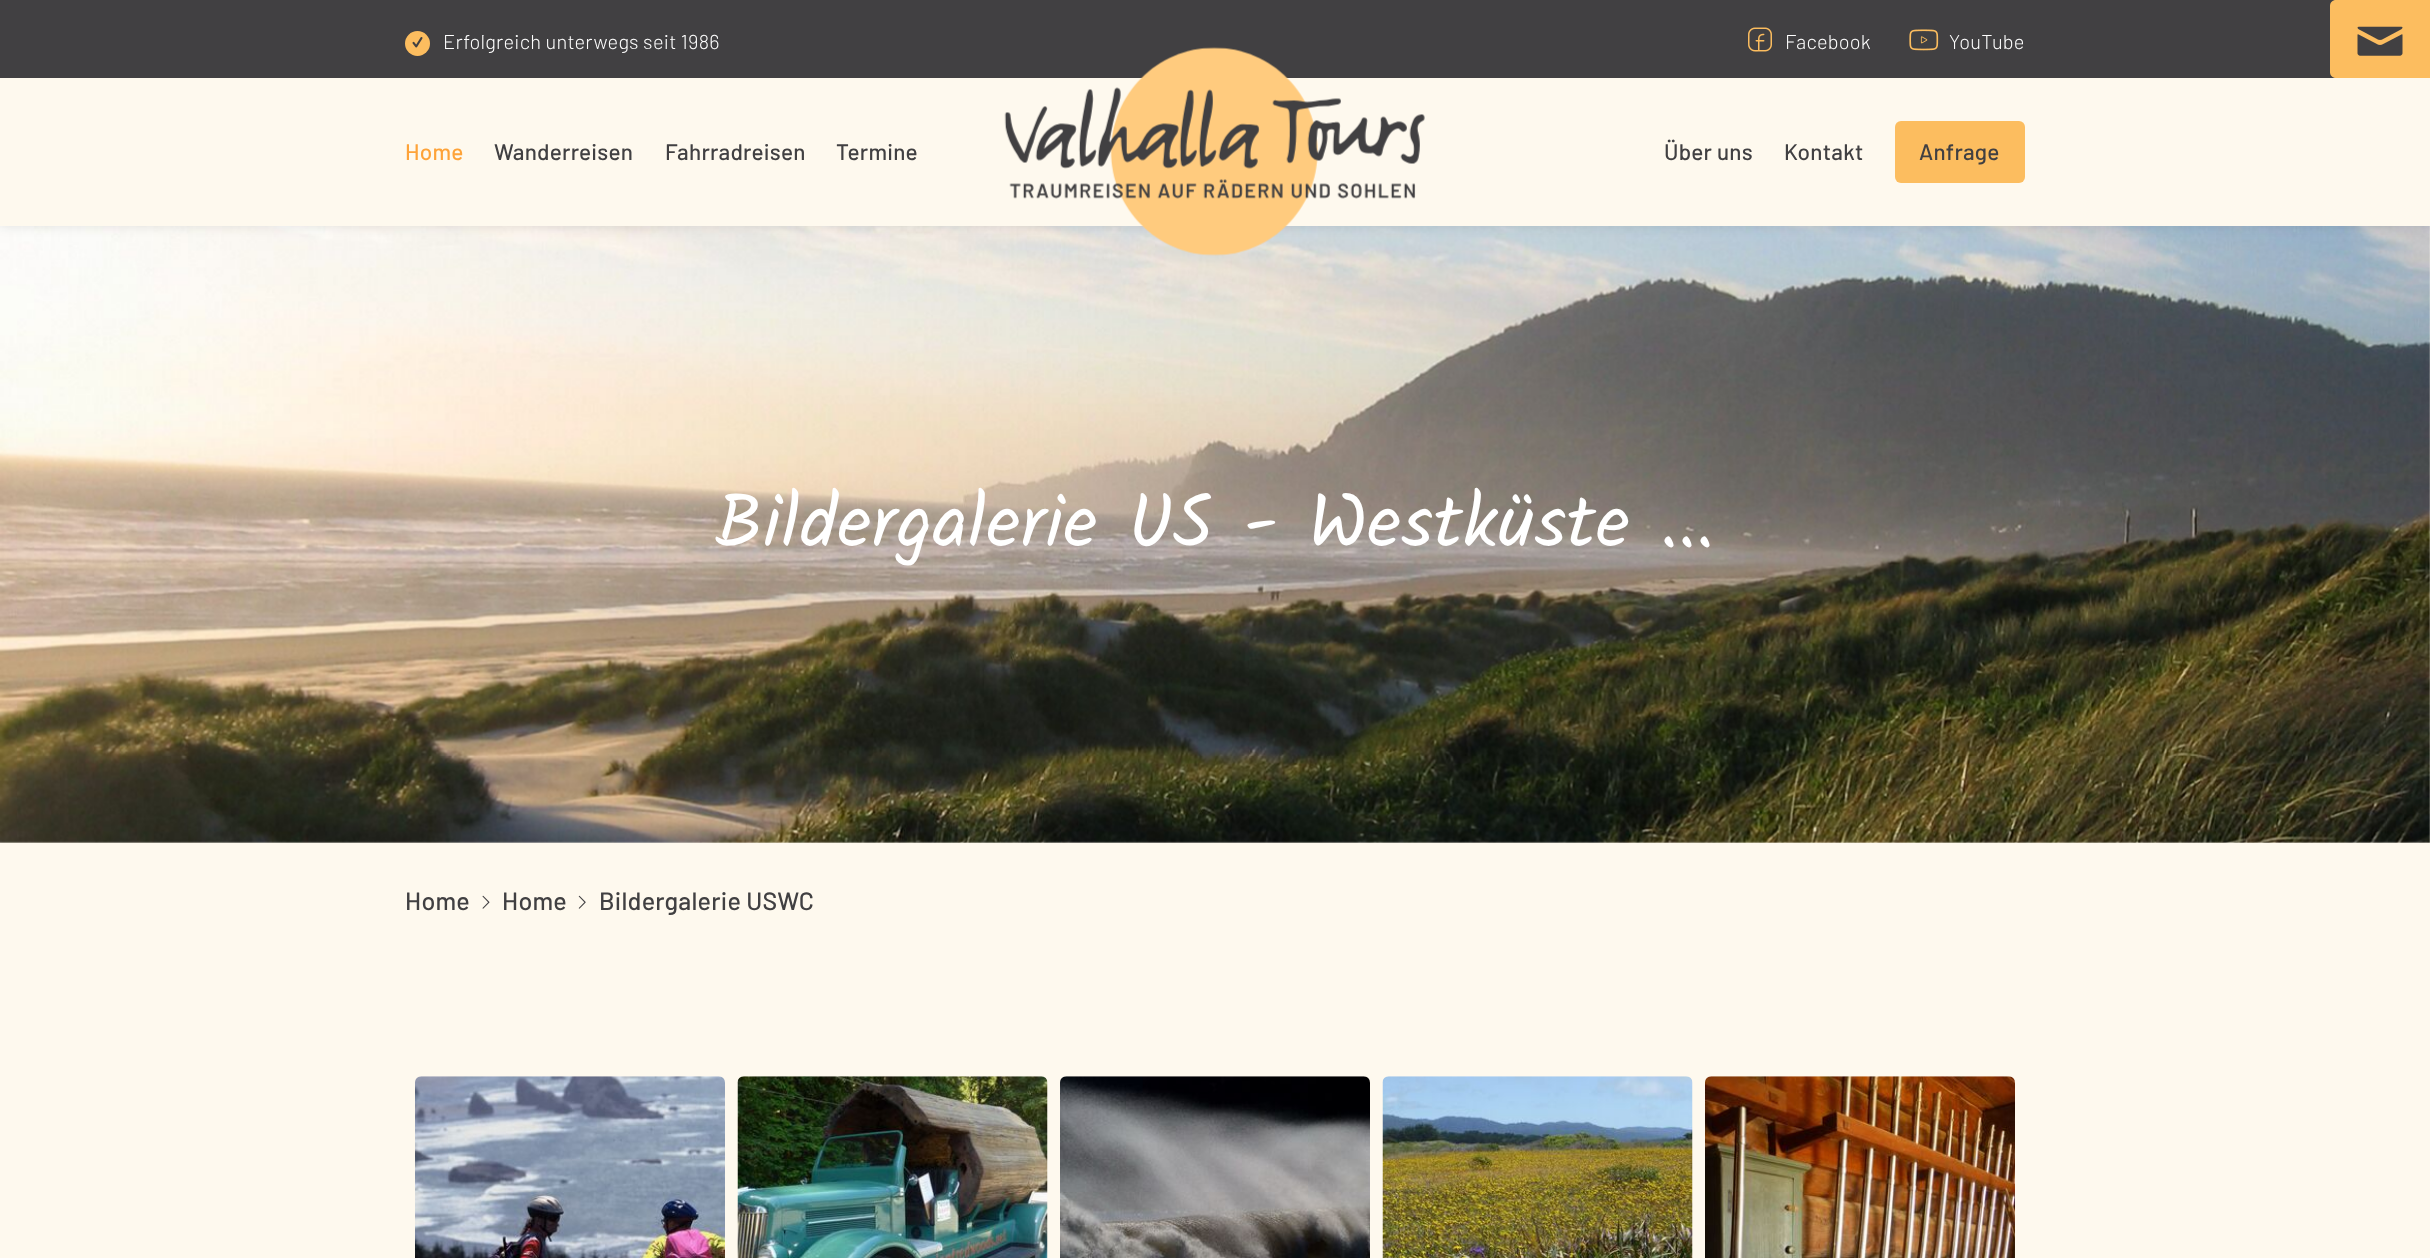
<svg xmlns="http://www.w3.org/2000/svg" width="2430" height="1258">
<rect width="100%" height="100%" fill="#fef9ee"/>
<image x="0" y="226" width="2430" height="617" href="media/6.png"/>
<rect width="2430" height="226" fill="#0000001a" filter="blur(6px)"/>
<rect width="2336" height="78" fill="#414042"/>
<circle cx="417.5" cy="43.5" r="12.5" fill="#fcbd5f"/>
<image x="412" y="37" width="11" height="11" href="media/1.png"/>
<text x="443" y="49" style="font-family:Barlow;font-size:20px;font-weight:300;letter-spacing:0.25px;fill:#fff">Erfolgreich unterwegs seit 1986</text>
<image x="1748" y="27" width="24" height="25" href="media/2.png"/>
<text x="1785" y="49" style="font-family:Barlow;font-size:20px;font-weight:300;letter-spacing:0.25px;fill:#fff">Facebook</text>
<image x="1909" y="29" width="30" height="22" href="media/3.png"/>
<text x="1949" y="49" style="font-family:Barlow;font-size:20px;font-weight:300;letter-spacing:0.25px;fill:#fff">YouTube</text>
<path d="M2336 0h94v78h-94c-3.5 0-6-2.5-6-6v-66c0-3.5 2.5-6 6-6z" fill="#fcbd5f"/>
<image x="2357" y="26" width="46" height="30" href="media/4.png"/>
<rect y="78" width="2430" height="148" fill="#fef9ee"/>
<text x="405" y="160" style="font-family:Barlow;font-size:22.5px;font-weight:500;letter-spacing:0.25px;fill:#fea339">Home</text>
<text x="494" y="160" style="font-family:Barlow;font-size:22.5px;font-weight:500;letter-spacing:0.25px;fill:#414042">Wanderreisen</text>
<text x="665" y="160" style="font-family:Barlow;font-size:22.5px;font-weight:500;letter-spacing:0.25px;fill:#414042">Fahrradreisen</text>
<text x="836" y="160" style="font-family:Barlow;font-size:22.5px;font-weight:500;letter-spacing:0.25px;fill:#414042">Termine</text>
<image x="1004" y="47" width="421" height="209" href="media/5.png"/>
<text x="1664" y="160" style="font-family:Barlow;font-size:22.5px;font-weight:500;letter-spacing:0.25px;fill:#414042">Über uns</text>
<text x="1784" y="160" style="font-family:Barlow;font-size:22.5px;font-weight:500;letter-spacing:0.25px;fill:#414042">Kontakt</text>
<rect x="1895" y="121" width="130" height="62" rx="6" fill="#fcbd5f"/>
<text x="1919" y="160" style="font-family:Barlow;font-size:22.5px;font-weight:500;letter-spacing:0.25px;fill:#414042">Anfrage</text>
<text x="715" y="547" style="font-family:Kalam;font-size:75px;letter-spacing:0.25px;fill:#fff">Bildergalerie US - Westküste ...</text>
<text x="405" y="910" style="font-family:Barlow;font-size:25px;font-weight:500;letter-spacing:0.25px;fill:#414042">Home</text>
<image x="482" y="895" width="8" height="14" href="media/7.png"/>
<text x="502" y="910" style="font-family:Barlow;font-size:25px;font-weight:500;letter-spacing:0.25px;fill:#414042">Home</text>
<image x="578" y="895" width="8" height="14" href="media/8.png"/>
<text x="599" y="910" style="font-family:Barlow;font-size:25px;font-weight:500;letter-spacing:0.25px;fill:#414042">Bildergalerie USWC</text>
<image x="415" y="1076" width="310" height="182" href="media/9.png"/>
<image x="737" y="1076" width="311" height="182" href="media/10.png"/>
<image x="1060" y="1076" width="310" height="182" href="media/11.png"/>
<image x="1382" y="1076" width="311" height="182" href="media/12.png"/>
<image x="1705" y="1076" width="310" height="182" href="media/13.png"/>
</svg>
